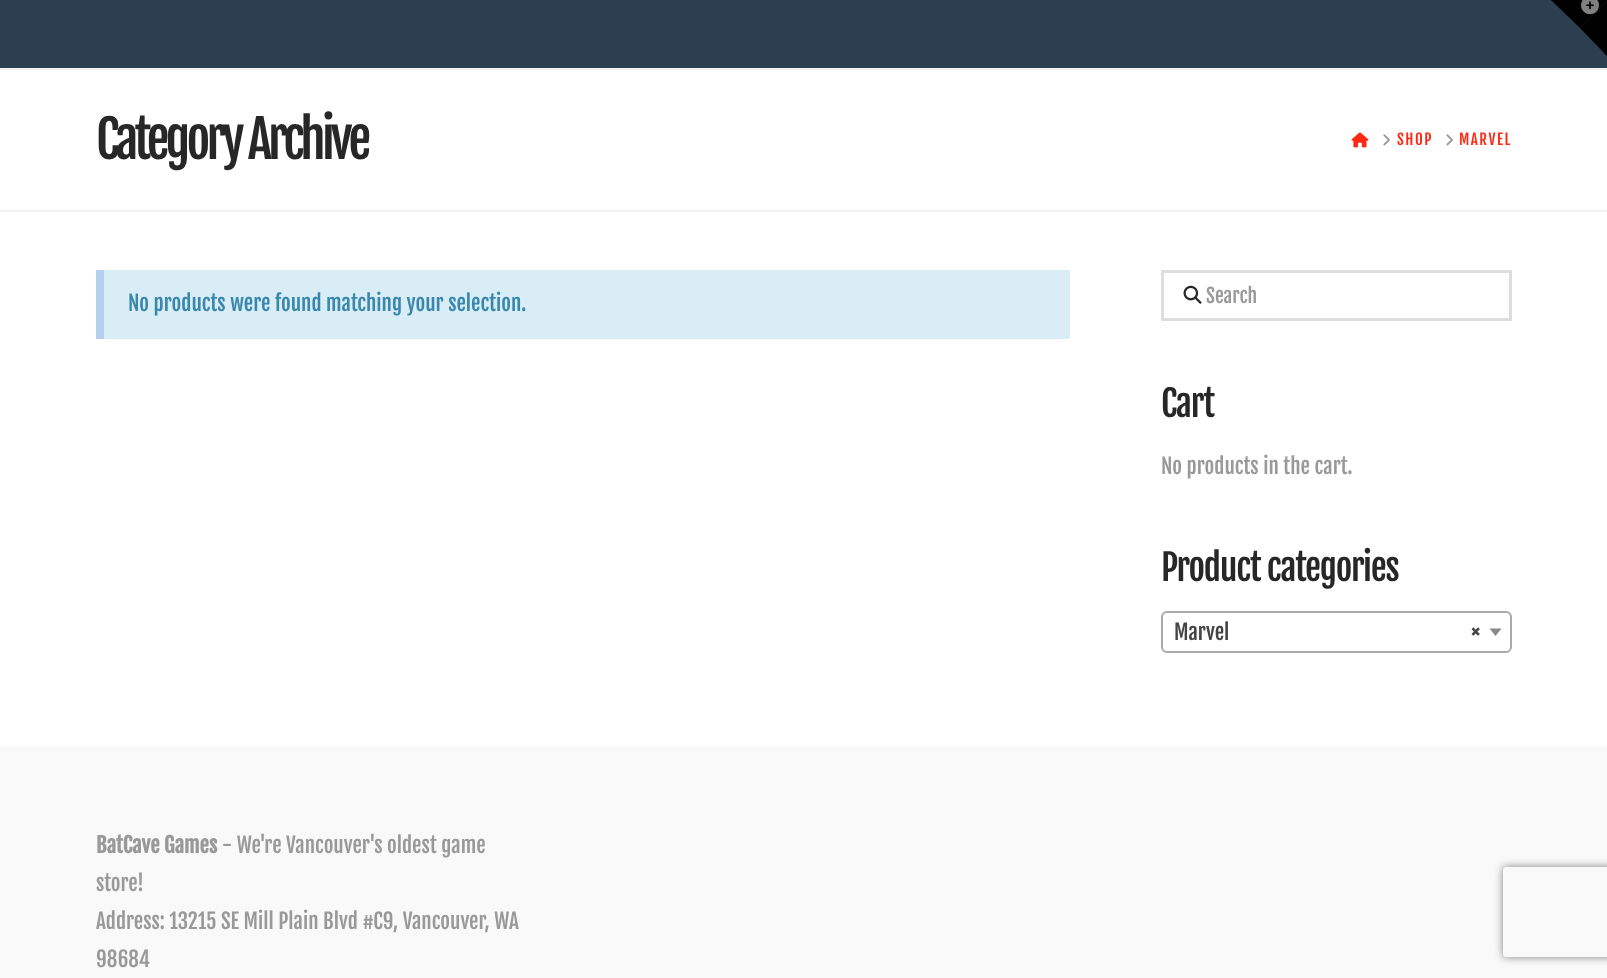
<svg xmlns="http://www.w3.org/2000/svg" width="1607" height="978">
<defs>
<clipPath id="clip1"><path d="M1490 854h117v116h-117zm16 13h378c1.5 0 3 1.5 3 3v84c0 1.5-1.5 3-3 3h-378c-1.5 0-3-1.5-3-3v-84c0-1.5 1.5-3 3-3z" clip-rule="evenodd"/></clipPath>
</defs>
<rect width="100%" height="100%" fill="#fff"/>
<rect width="1607" height="68" fill="#2c3e50"/>
<path d="M1551 0h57l-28 28z" fill="#000"/>
<path d="M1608 0v57l-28-29z" fill="#000"/>
<image x="1581" y="0" width="18" height="15" href="media/1.png"/>
<rect y="68" width="1607" height="2" fill="#f2f2f2"/>
<rect y="210" width="1607" height="2" fill="#f2f2f2"/>
<text x="96" y="159" style="font-family:Fjalla One;font-size:51.5px;letter-spacing:-3.9px;fill:#272727">Category Archive</text>
<image x="1351" y="132" width="18" height="16" href="media/2.png"/>
<image x="1383" y="134" width="7" height="12" href="media/3.png"/>
<text x="1397" y="145" style="font-family:Fjalla One;font-size:15px;letter-spacing:1.5px;fill:#ff2a13">SHOP</text>
<image x="1446" y="134" width="7" height="12" href="media/3.png"/>
<text x="1459" y="145" style="font-family:Fjalla One;font-size:15px;letter-spacing:1.5px;fill:#ff2a13">MARVEL</text>
<rect x="104" y="270" width="966" height="69" fill="#d9edf7"/>
<rect x="96" y="270" width="8" height="69" fill="#b3d1ef"/>
<text x="128" y="311" style="font-family:Fjalla One;font-size:21px;fill:#3a87ad">No products were found matching your selection.</text>
<rect x="1162.5" y="271.5" width="348" height="48" fill="none" stroke="#ddd" stroke-width="3"/>
<image x="1183" y="285" width="19" height="19" href="media/4.png"/>
<text x="1206" y="303" style="font-family:Fjalla One;font-size:19.5px;fill:#999">Search</text>
<text x="1161" y="417" style="font-family:Fjalla One;font-size:35.75px;letter-spacing:-1.25px;fill:#272727">Cart</text>
<text x="1161" y="474" style="font-family:Fjalla One;font-size:21px;fill:#999">No products in the cart.</text>
<text x="1161" y="581" style="font-family:Fjalla One;font-size:35.75px;letter-spacing:-1.25px;fill:#272727">Product categories</text>
<rect x="1162" y="612" width="349" height="40" rx="5" fill="none" stroke="#aaa" stroke-width="2"/>
<text x="1174" y="640" style="font-family:Fjalla One;font-size:21px;fill:#444">Marvel</text>
<text x="1471" y="640" style="font-family:Fjalla One;font-size:21px;font-weight:bold;fill:#444">×</text>
<path d="M1489.5 628.5h12l-6 7.5z" fill="#888"/>
<rect y="746" width="1607" height="232" fill="#f9f9f9"/>
<text x="96" y="853" style="font-family:Fjalla One;font-size:21px;font-weight:bold;fill:#999">BatCave Games</text>
<text x="222" y="853" style="font-family:Fjalla One;font-size:21px;fill:#999">- We're Vancouver's oldest game</text>
<text x="96" y="891" style="font-family:Fjalla One;font-size:21px;fill:#999">store!</text>
<text x="96" y="929" style="font-family:Fjalla One;font-size:21px;fill:#999">Address: 13215 SE Mill Plain Blvd #C9, Vancouver, WA</text>
<text x="96" y="967" style="font-family:Fjalla One;font-size:21px;fill:#999">98684</text>
<g clip-path="url(#clip1)">
<rect x="1503" y="867" width="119" height="90" rx="3" fill="#808080" filter="blur(4px)"/>
</g>
</svg>
